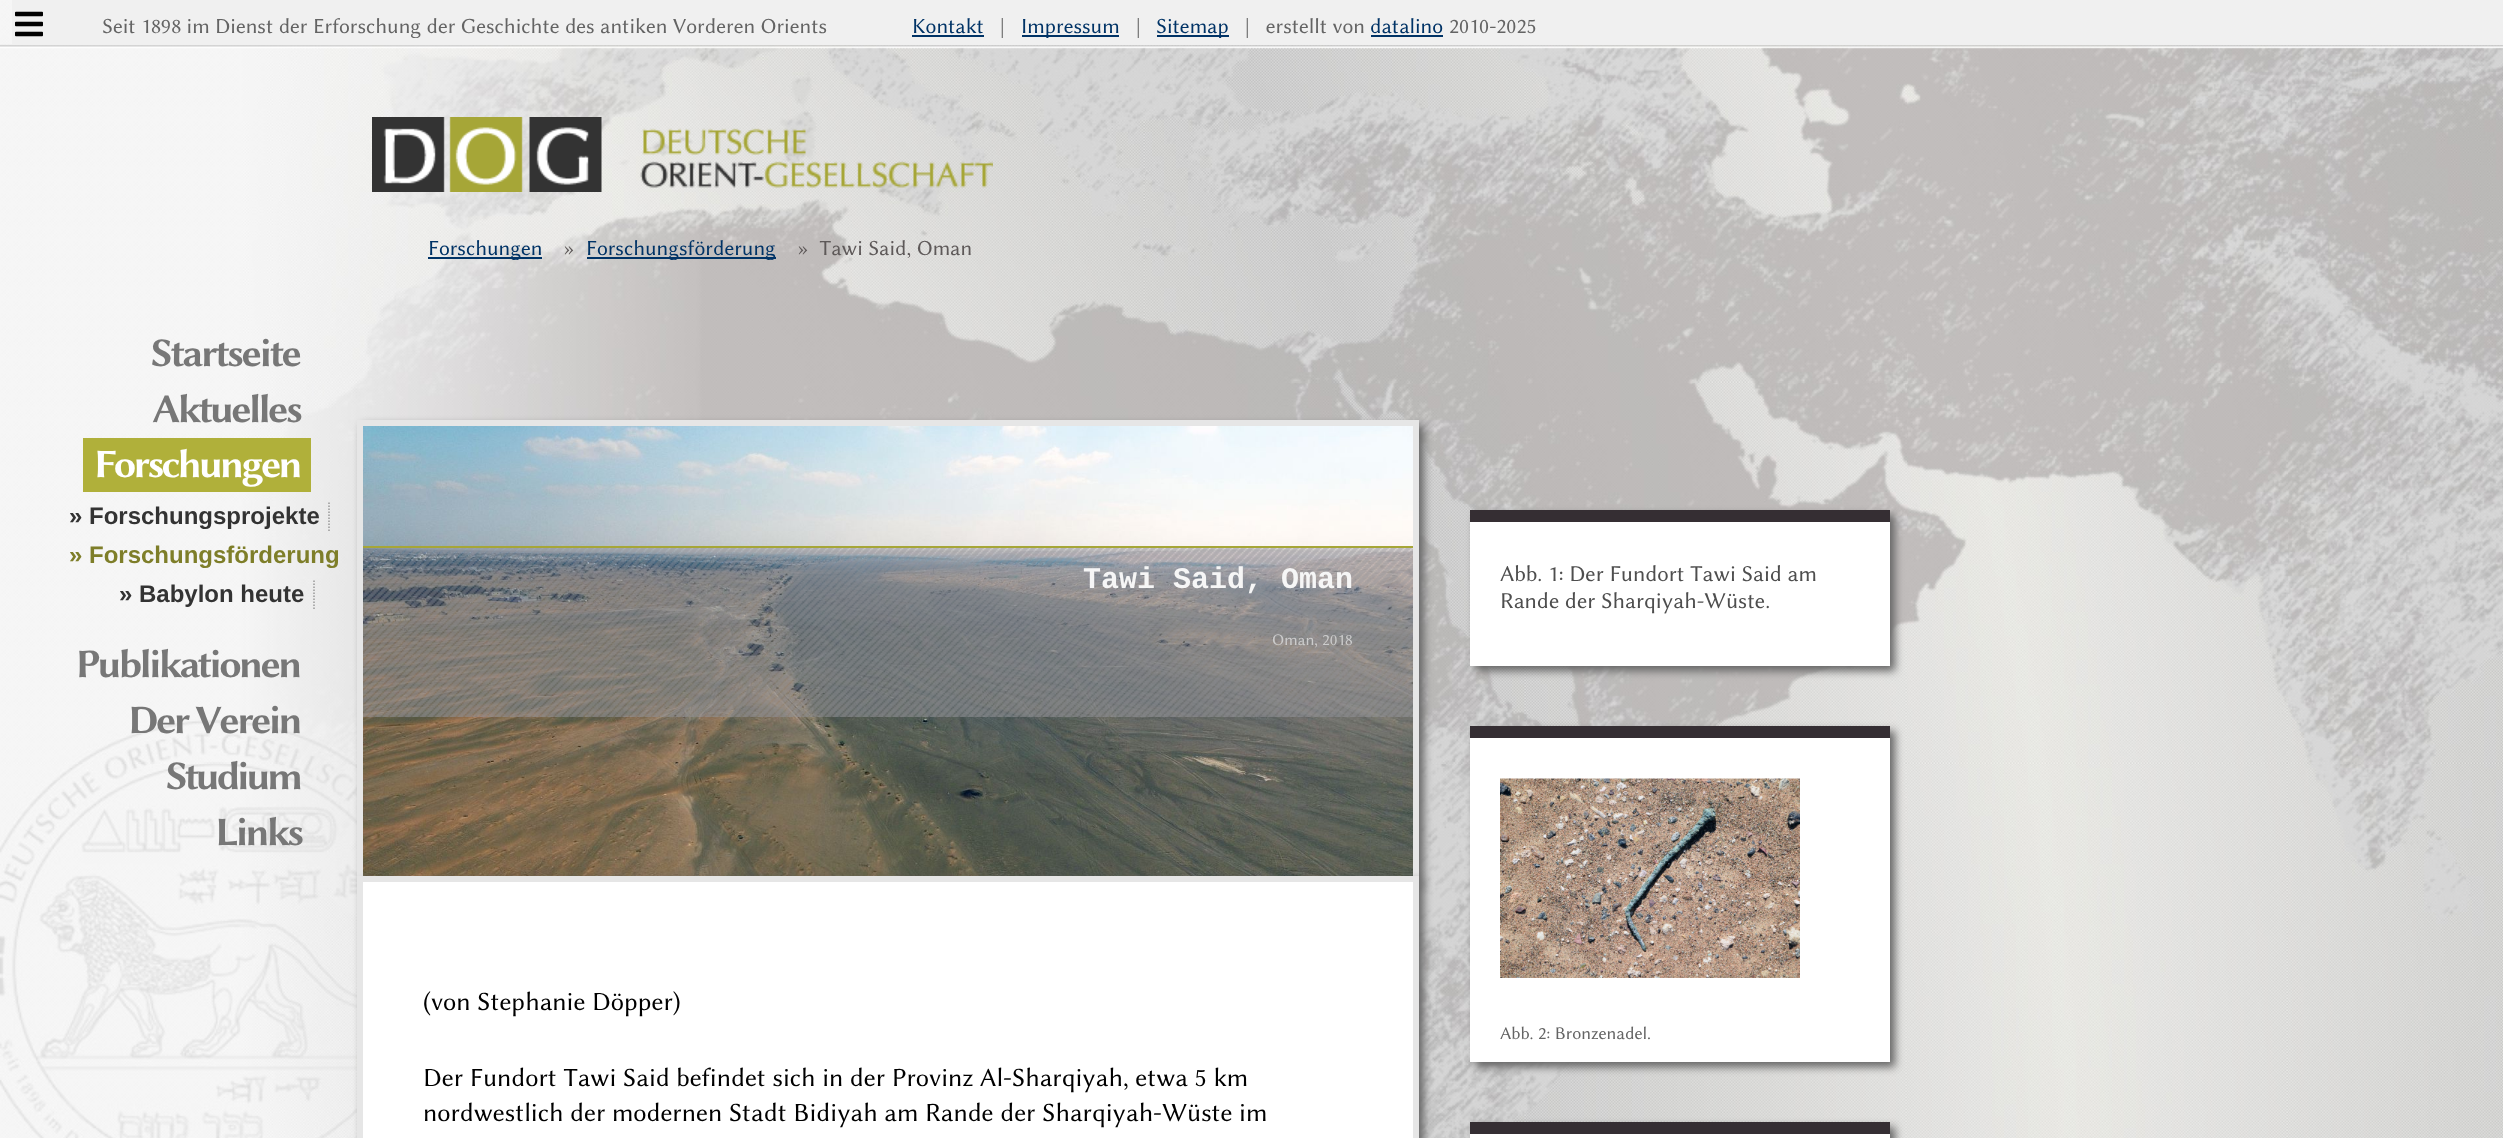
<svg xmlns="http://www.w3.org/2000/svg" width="2503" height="1138">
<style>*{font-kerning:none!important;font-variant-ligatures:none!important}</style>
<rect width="100%" height="100%" fill="#fff"/>
<image x="0" y="0" width="2503" height="1138" href="media/1.png"/>
<rect x="12" width="2491" height="45" fill="#f0f0f0"/>
<image x="15" y="11" width="28" height="26" href="media/2.png"/>
<text x="102" y="33" style="font-family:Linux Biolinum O;font-size:21.6px;fill:#646464">Seit 1898 im Dienst der Erforschung der Geschichte des antiken Vorderen Orients</text>
<text x="912" y="33" style="font-family:Linux Biolinum O;font-size:21.6px;fill:#036">Kontakt</text>
<rect x="912" y="35" width="72" height="2" fill="#036"/>
<text x="1000" y="33" style="font-family:Linux Biolinum O;font-size:21.6px;fill:#646464">|</text>
<rect x="1022" y="35" width="97" height="2" fill="#036"/>
<text x="1021" y="33" style="font-family:Linux Biolinum O;font-size:21.6px;fill:#036">Impressum</text>
<text x="1136" y="33" style="font-family:Linux Biolinum O;font-size:21.6px;fill:#646464">|</text>
<rect x="1157" y="35" width="72" height="2" fill="#036"/>
<text x="1156" y="33" style="font-family:Linux Biolinum O;font-size:21.6px;fill:#036">Sitemap</text>
<text x="1245" y="33" style="font-family:Linux Biolinum O;font-size:21.6px;fill:#646464" xml:space="preserve">|   erstellt von</text>
<text x="1370" y="33" style="font-family:Linux Biolinum O;font-size:21.6px;fill:#036">datalino</text>
<rect x="1371" y="35" width="72" height="2" fill="#036"/>
<text x="1449" y="33" style="font-family:Linux Biolinum O;font-size:21.6px;fill:#646464">2010-2025</text>
<image x="372" y="117" width="621" height="75" href="media/3.png"/>
<rect x="428" y="257" width="114" height="2" fill="#036"/>
<text x="428" y="255" style="font-family:Linux Biolinum O;font-size:21.6px;fill:#036">Forschungen</text>
<text x="563" y="255" style="font-family:Linux Biolinum O;font-size:21.6px;fill:#5e5959">»</text>
<rect x="587" y="257" width="189" height="2" fill="#036"/>
<text x="586" y="255" style="font-family:Linux Biolinum O;font-size:21.6px;fill:#036">Forschungsförderung</text>
<text x="797" y="255" style="font-family:Linux Biolinum O;font-size:21.6px;fill:#5e5959" xml:space="preserve">»  Tawi Said, Oman</text>
<text x="151" y="366" style="font-family:Linux Biolinum O;font-size:40.5px;font-weight:bold;letter-spacing:-2.5px;fill:#777">Startseite</text>
<text x="152" y="422" style="font-family:Linux Biolinum O;font-size:40.5px;font-weight:bold;letter-spacing:-2.75px;fill:#777">Aktuelles</text>
<rect x="83" y="438" width="228" height="54" fill="#b0b03a"/>
<text x="94" y="477" style="font-family:Linux Biolinum O;font-size:40.5px;font-weight:bold;letter-spacing:-3px;fill:#fff">Forschungen</text>
<text x="69" y="524" style="font-family:Liberation Sans;font-size:24px;font-weight:bold;fill:#333">» Forschungsprojekte</text>
<path d="M329 502.5v28.5" fill="none" stroke="#999" stroke-width="1.5" stroke-dasharray="1.5 1.5"/>
<text x="69" y="563" style="font-family:Liberation Sans;font-size:24px;font-weight:bold;fill:#7e7e29">» Forschungsförderung</text>
<text x="119" y="602" style="font-family:Liberation Sans;font-size:24px;font-weight:bold;fill:#333">» Babylon heute</text>
<path d="M314 580.5v28.5" fill="none" stroke="#999" stroke-width="1.5" stroke-dasharray="1.5 1.5"/>
<text x="76" y="677" style="font-family:Linux Biolinum O;font-size:40.5px;font-weight:bold;letter-spacing:-2.8px;fill:#777">Publikationen</text>
<text x="128" y="733" style="font-family:Linux Biolinum O;font-size:40.5px;font-weight:bold;letter-spacing:-2.9px;fill:#777">Der Verein</text>
<text x="166" y="789" style="font-family:Linux Biolinum O;font-size:40.5px;font-weight:bold;letter-spacing:-3.25px;fill:#777">Studium</text>
<text x="215" y="845" style="font-family:Linux Biolinum O;font-size:40.5px;font-weight:bold;letter-spacing:-3px;fill:#777">Links</text>
<rect x="362" y="425" width="1062" height="462" fill="#666" filter="blur(4.5px)"/>
<rect x="360" y="423" width="1056" height="456" fill="none" stroke="#e6e6e6" stroke-width="6"/>
<image x="363" y="426" width="1050" height="450" href="media/4.png"/>
<image x="363" y="548" width="1050" height="169" href="media/5.png"/>
<rect x="363" y="546" width="1050" height="2" fill="#a6a637"/>
<text x="1083" y="588" style="font-family:Liberation Mono;font-size:30px;font-weight:bold;fill:#f6f6f6">Tawi Said, Oman</text>
<text x="1272" y="645" style="font-family:Linux Biolinum O;font-size:16.5px;fill:#ccc">Oman, 2018</text>
<rect x="1475" y="515" width="420" height="156" fill="#666" filter="blur(4.5px)"/>
<rect x="1470" y="522" width="420" height="144" fill="#fff"/>
<rect x="1470" y="510" width="420" height="12" fill="#352e33"/>
<text x="1500" y="581" style="font-family:Linux Biolinum O;font-size:22.75px;fill:#4e4e4e">Abb. 1: Der Fundort Tawi Said am</text>
<text x="1500" y="608" style="font-family:Linux Biolinum O;font-size:22.75px;fill:#4e4e4e">Rande der Sharqiyah-Wüste.</text>
<rect x="1475" y="731" width="420" height="336" fill="#666" filter="blur(4.5px)"/>
<rect x="1470" y="738" width="420" height="324" fill="#fff"/>
<rect x="1470" y="726" width="420" height="12" fill="#352e33"/>
<image x="1500" y="778" width="300" height="200" href="media/6.png"/>
<text x="1500" y="1039" style="font-family:Linux Biolinum O;font-size:18px;fill:#646464">Abb. 2: Bronzenadel.</text>
<rect x="1475" y="1127" width="420" height="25" fill="#666" filter="blur(4.5px)"/>
<rect x="1470" y="1134" width="420" height="4" fill="#fff"/>
<rect x="1470" y="1122" width="420" height="12" fill="#352e33"/>
<rect x="362" y="881" width="1062" height="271" fill="#666" filter="blur(4.5px)"/>
<rect x="360" y="879" width="1056" height="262" fill="#fff" stroke="#e6e6e6" stroke-width="6"/>
<text x="423" y="1010" style="font-family:Linux Biolinum O;font-size:26.4px;fill:#000">(von Stephanie Döpper)</text>
<text x="423" y="1086" style="font-family:Linux Biolinum O;font-size:26.4px;fill:#000">Der Fundort Tawi Said befindet sich in der Provinz Al-Sharqiyah, etwa 5 km</text>
<text x="423" y="1121" style="font-family:Linux Biolinum O;font-size:26.4px;fill:#000">nordwestlich der modernen Stadt Bidiyah am Rande der Sharqiyah-Wüste im</text>
</svg>
